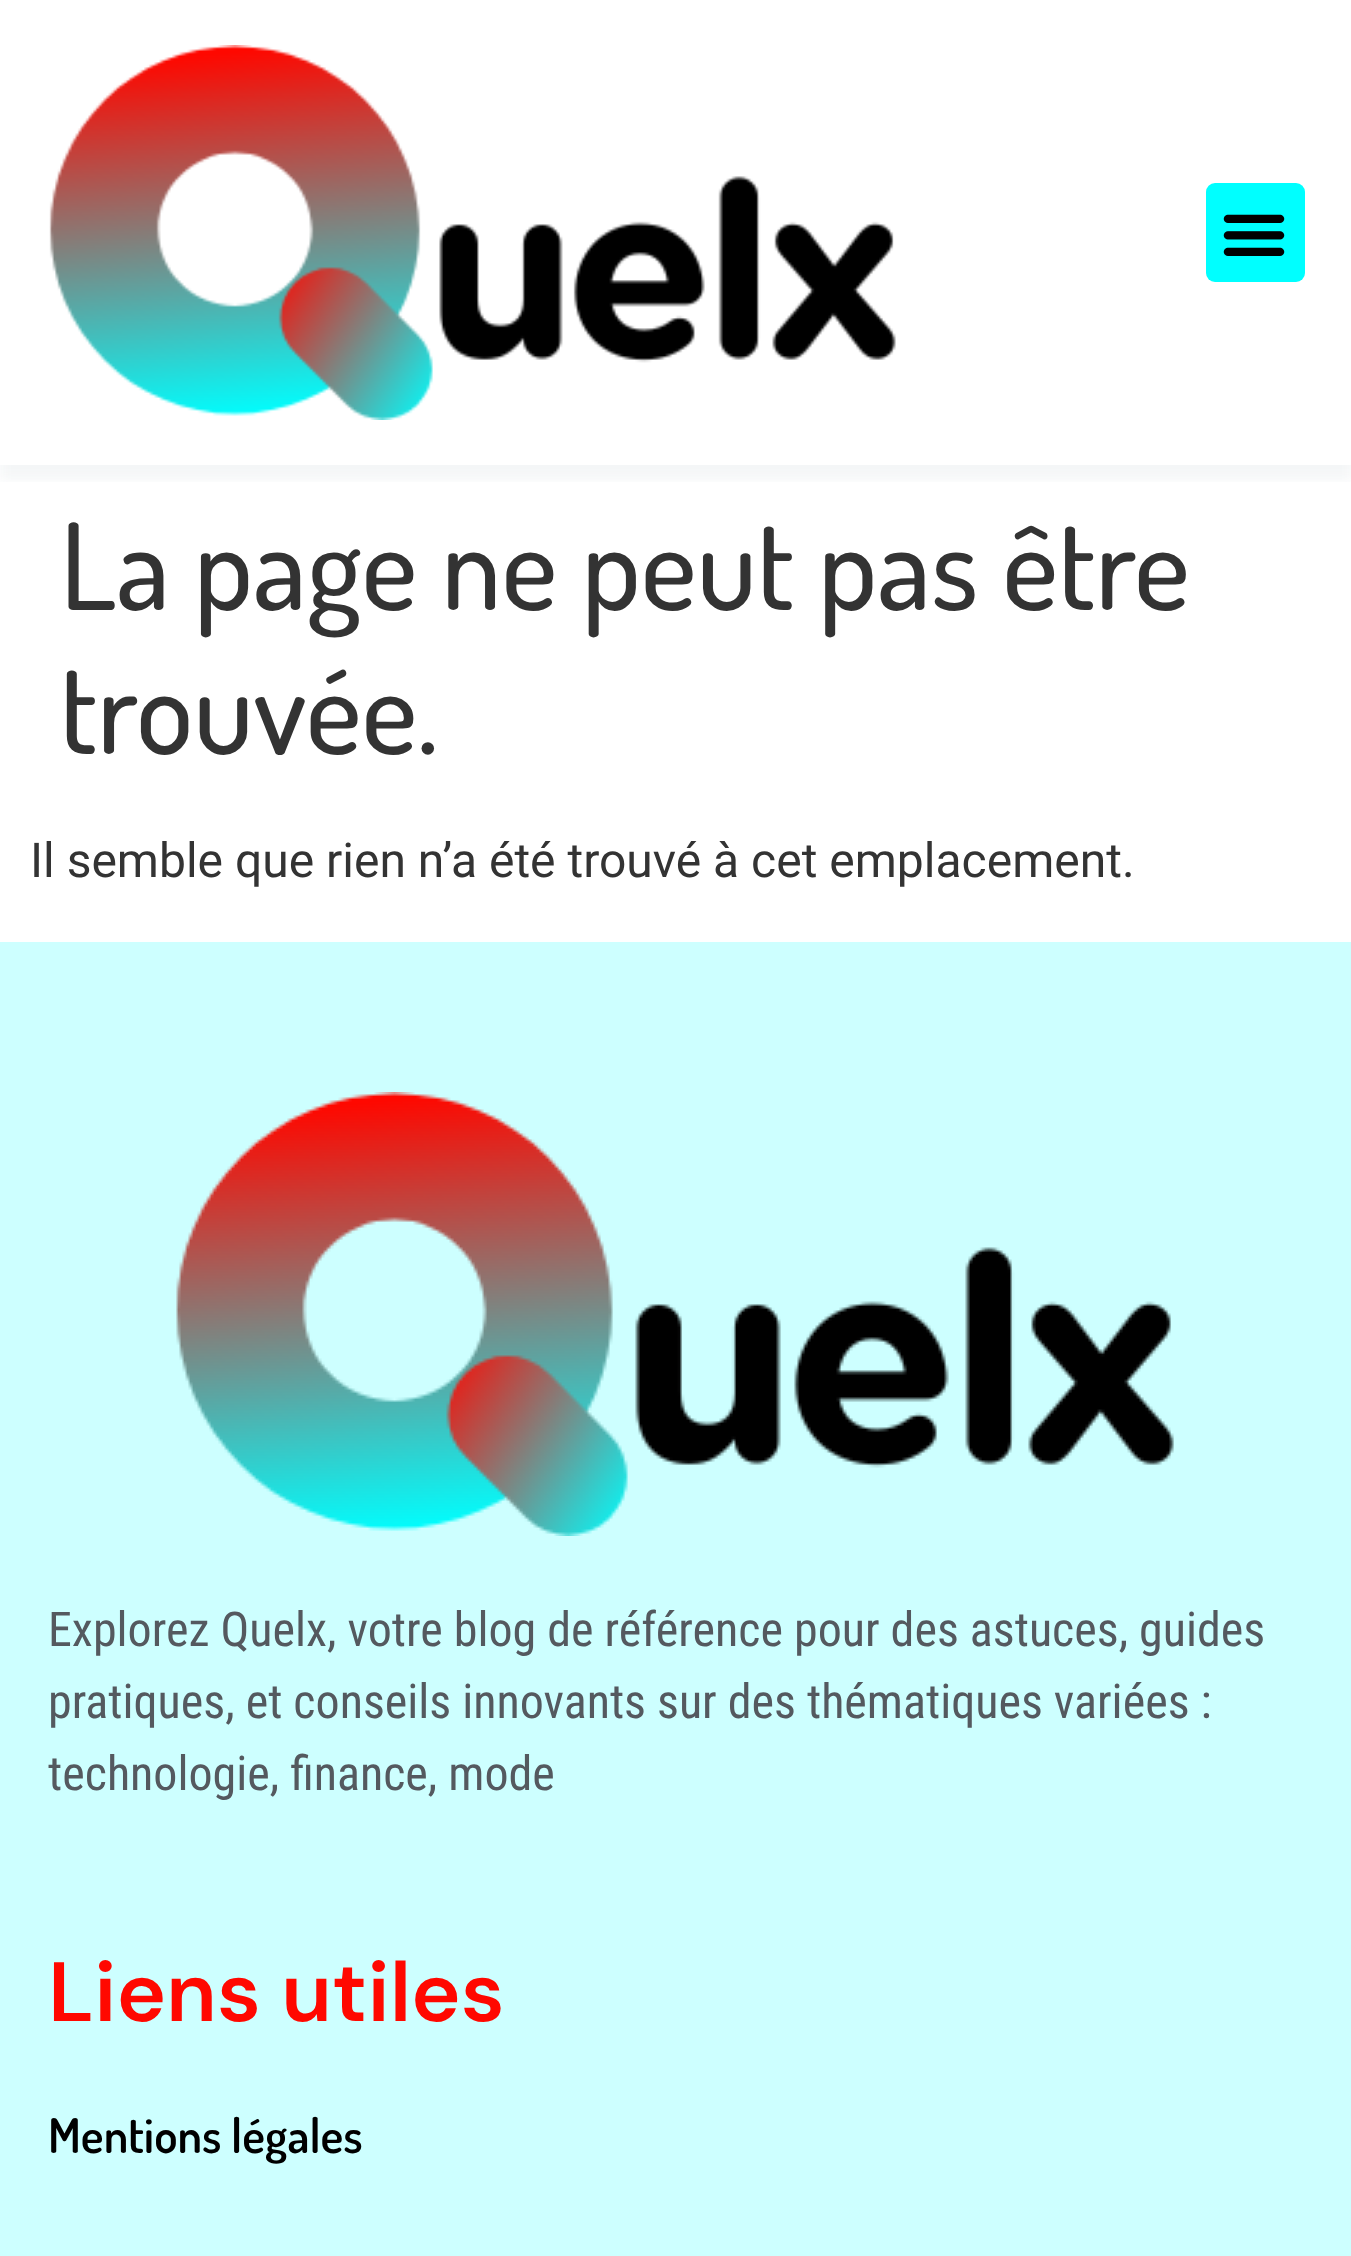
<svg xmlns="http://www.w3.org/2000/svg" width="1351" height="2256">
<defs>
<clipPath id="clip1"><rect x="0" y="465" width="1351" height="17"/></clipPath>
</defs>
<rect width="100%" height="100%" fill="#fff"/>
<g clip-path="url(#clip1)">
<rect y="15" width="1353" height="465" fill="#2550620d" filter="blur(7px)"/>
</g>
<image x="49" y="45" width="847" height="375" href="media/1.png"/>
<rect x="1206" y="183" width="99" height="99" rx="9" fill="#0ff"/>
<image x="1223" y="214" width="62" height="42" href="media/2.png"/>
<text x="60" y="610" style="font-family:Dosis;font-size:120px;font-weight:500;fill:#333">La page ne peut pas être</text>
<text x="60" y="754" style="font-family:Dosis;font-size:120px;font-weight:500;fill:#333">trouvée.</text>
<text x="30" y="877" style="font-family:Roboto;font-size:48px;fill:#333">Il semble que rien n’a été trouvé à cet emplacement.</text>
<rect y="942" width="1351" height="1314" fill="#cdffff"/>
<image x="176" y="1092" width="998" height="444" href="media/3.png"/>
<text x="48" y="1646" style="font-family:Roboto Condensed;font-size:48px;fill:#54595f">Explorez Quelx, votre blog de référence pour des astuces, guides</text>
<text x="48" y="1718" style="font-family:Roboto Condensed;font-size:48px;fill:#54595f">pratiques, et conseils innovants sur des thématiques variées :</text>
<text x="48" y="1790" style="font-family:Roboto Condensed;font-size:48px;fill:#54595f">technologie, finance, mode</text>
<text x="48" y="2021" style="font-family:DM Sans;font-size:84px;font-weight:600;fill:#ff0800">Liens utiles</text>
<text x="48" y="2153" style="font-family:Dosis;font-size:48px;font-weight:600;fill:#000">Mentions légales</text>
</svg>
